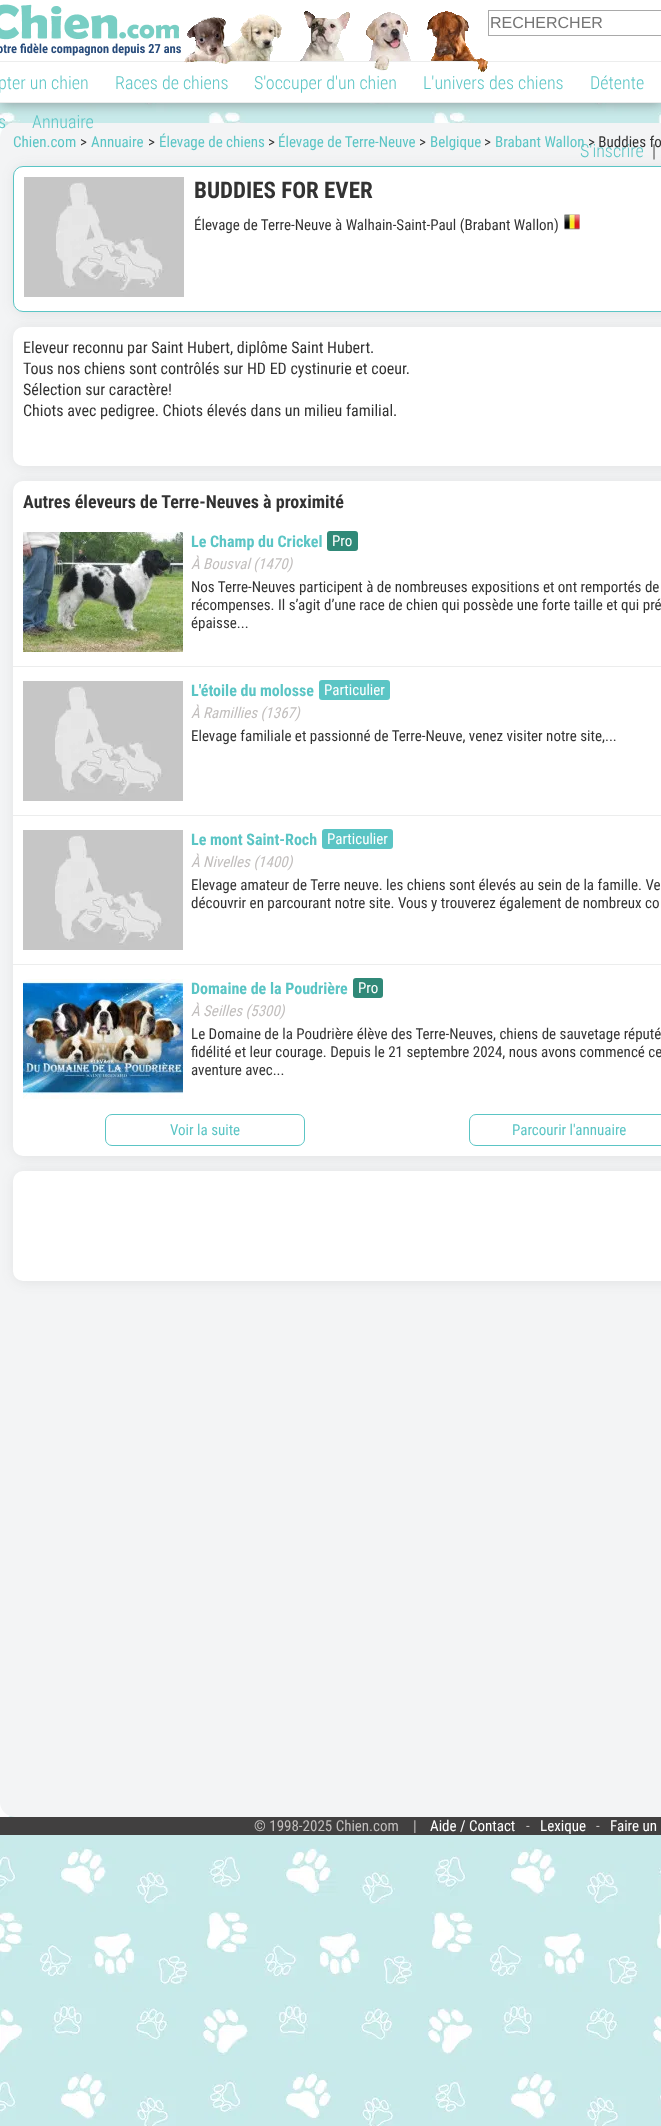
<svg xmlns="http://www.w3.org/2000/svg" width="661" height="2126">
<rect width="100%" height="100%" fill="#fff"/>
<image x="0" y="103" width="661" height="2023" href="media/1.png"/>
<rect x="1" y="1" width="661" height="103" fill="#48484880" filter="blur(6.5px)"/>
<rect width="661" height="102" fill="#fff"/>
<rect y="102" width="661" height="1" fill="#eceded"/>
<image x="0" y="4" width="181" height="52" href="media/2.png"/>
<rect y="61" width="661" height="1" fill="#eceded"/>
<image x="184" y="11" width="304" height="61" href="media/3.png"/>
<rect x="488.5" y="10.5" width="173" height="25" fill="none" stroke="#a9a9a9"/>
<text x="490" y="28" style="font-family:Liberation Sans;font-size:16px;fill:#757575">RECHERCHER</text>
<text x="-2" y="89" style="font-family:Roboto;font-size:18px;font-weight:300;fill:#5bc5c5">pter un chien</text>
<text x="115" y="89" style="font-family:Roboto;font-size:18px;font-weight:300;fill:#5bc5c5">Races de chiens</text>
<text x="254" y="89" style="font-family:Roboto;font-size:18px;font-weight:300;fill:#5bc5c5">S'occuper d'un chien</text>
<text x="423" y="89" style="font-family:Roboto;font-size:18px;font-weight:300;fill:#5bc5c5">L'univers des chiens</text>
<text x="590" y="89" style="font-family:Roboto;font-size:18px;font-weight:300;fill:#5bc5c5">Détente</text>
<rect y="123" width="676" height="1694" rx="15" fill="#f3f4f5"/>
<text x="-2" y="128" style="font-family:Roboto;font-size:18px;font-weight:300;fill:#5bc5c5">s</text>
<text x="32" y="128" style="font-family:Roboto;font-size:18px;font-weight:300;fill:#5bc5c5">Annuaire</text>
<text x="580" y="157" style="font-family:Roboto;font-size:18px;font-weight:300;fill:#5bc5c5">S'inscrire</text>
<text x="652" y="157" style="font-family:Roboto;font-size:18px;font-weight:300;fill:#333">|</text>
<rect x="14" y="167" width="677" height="146" rx="10" fill="#4848481a" filter="blur(6.5px)"/>
<text x="13" y="147" style="font-family:Roboto Condensed;font-size:15px;fill:#5bc5c5">Chien.com</text>
<text x="80" y="147" style="font-family:Roboto Condensed;font-size:15px;fill:#333">&gt;</text>
<text x="91" y="147" style="font-family:Roboto Condensed;font-size:15px;fill:#5bc5c5">Annuaire</text>
<text x="148" y="147" style="font-family:Roboto Condensed;font-size:15px;fill:#333">&gt;</text>
<text x="159" y="147" style="font-family:Roboto Condensed;font-size:15px;fill:#5bc5c5">Élevage de chiens</text>
<text x="268" y="147" style="font-family:Roboto Condensed;font-size:15px;fill:#333">&gt;</text>
<text x="278" y="147" style="font-family:Roboto Condensed;font-size:15px;fill:#5bc5c5">Élevage de Terre-Neuve</text>
<text x="419" y="147" style="font-family:Roboto Condensed;font-size:15px;fill:#333">&gt;</text>
<text x="430" y="147" style="font-family:Roboto Condensed;font-size:15px;fill:#5bc5c5">Belgique</text>
<text x="484" y="147" style="font-family:Roboto Condensed;font-size:15px;fill:#333">&gt;</text>
<text x="495" y="147" style="font-family:Roboto Condensed;font-size:15px;fill:#5bc5c5">Brabant Wallon</text>
<text x="588" y="147" style="font-family:Roboto Condensed;font-size:15px;fill:#333">&gt; Buddies fo</text>
<rect x="13.5" y="166.5" width="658" height="145" rx="9.5" fill="#fff" stroke="#5bc5c5"/>
<image x="24" y="177" width="160" height="120" href="media/4.png"/>
<text x="194" y="198" style="font-family:Roboto;font-size:23px;font-weight:bold;fill:#333">BUDDIES FOR EVER</text>
<text x="194" y="230" style="font-family:Roboto Condensed;font-size:15px;fill:#333">Élevage de Terre-Neuve à Walhain-Saint-Paul (Brabant Wallon)</text>
<image x="564" y="214" width="16" height="16" href="media/5.png"/>
<rect x="14" y="328" width="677" height="139" rx="10" fill="#4848481a" filter="blur(6.5px)"/>
<rect x="13" y="327" width="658" height="139" rx="10" fill="#fff"/>
<text x="23" y="353" style="font-family:Roboto Condensed;font-size:16px;fill:#333">Eleveur reconnu par Saint Hubert, diplôme Saint Hubert.</text>
<text x="23" y="374" style="font-family:Roboto Condensed;font-size:16px;fill:#333">Tous nos chiens sont contrôlés sur HD ED cystinurie et coeur.</text>
<text x="23" y="395" style="font-family:Roboto Condensed;font-size:16px;fill:#333">Sélection sur caractère!</text>
<text x="23" y="416" style="font-family:Roboto Condensed;font-size:16px;fill:#333">Chiots avec pedigree. Chiots élevés dans un milieu familial.</text>
<rect x="14" y="482" width="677" height="675" rx="10" fill="#4848481a" filter="blur(6.5px)"/>
<rect x="13" y="481" width="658" height="675" rx="10" fill="#fff"/>
<text x="23" y="508" style="font-family:Roboto;font-size:18px;font-weight:bold;fill:#333">Autres éleveurs de Terre-Neuves à proximité</text>
<image x="23" y="532" width="160" height="120" href="media/6.png"/>
<text x="191" y="547" style="font-family:Roboto;font-size:16px;font-weight:bold;fill:#5bc5c5">Le Champ du Crickel</text>
<rect x="327" y="531" width="31" height="20" rx="3" fill="#308978"/>
<text x="332" y="546" style="font-family:Roboto Condensed;font-size:15px;fill:#fff">Pro</text>
<text x="191" y="569" style="font-family:Roboto Condensed;font-size:15px;font-style:italic;fill:#c2bfbe">À Bousval (1470)</text>
<text x="191" y="592" style="font-family:Roboto Condensed;font-size:15px;fill:#333">Nos Terre-Neuves participent à de nombreuses expositions et ont remportés de</text>
<text x="191" y="610" style="font-family:Roboto Condensed;font-size:15px;fill:#333">récompenses. Il s’agit d’une race de chien qui possède une forte taille et qui pré</text>
<text x="191" y="628" style="font-family:Roboto Condensed;font-size:15px;fill:#333">épaisse...</text>
<rect x="13" y="666" width="648" height="1" fill="#eceded"/>
<image x="23" y="681" width="160" height="120" href="media/4.png"/>
<text x="191" y="696" style="font-family:Roboto;font-size:16px;font-weight:bold;fill:#5bc5c5">L'étoile du molosse</text>
<rect x="319" y="680" width="71" height="20" rx="3" fill="#5bc5c5"/>
<text x="324" y="695" style="font-family:Roboto Condensed;font-size:15px;fill:#fff">Particulier</text>
<text x="191" y="718" style="font-family:Roboto Condensed;font-size:15px;font-style:italic;fill:#c2bfbe">À Ramillies (1367)</text>
<text x="191" y="741" style="font-family:Roboto Condensed;font-size:15px;fill:#333">Elevage familiale et passionné de Terre-Neuve, venez visiter notre site,...</text>
<rect x="13" y="815" width="648" height="1" fill="#eceded"/>
<image x="23" y="830" width="160" height="120" href="media/4.png"/>
<text x="191" y="845" style="font-family:Roboto;font-size:16px;font-weight:bold;fill:#5bc5c5">Le mont Saint-Roch</text>
<rect x="322" y="829" width="71" height="20" rx="3" fill="#5bc5c5"/>
<text x="327" y="844" style="font-family:Roboto Condensed;font-size:15px;fill:#fff">Particulier</text>
<text x="191" y="867" style="font-family:Roboto Condensed;font-size:15px;font-style:italic;fill:#c2bfbe">À Nivelles (1400)</text>
<text x="191" y="890" style="font-family:Roboto Condensed;font-size:15px;fill:#333">Elevage amateur de Terre neuve. les chiens sont élevés au sein de la famille. Ve</text>
<text x="191" y="908" style="font-family:Roboto Condensed;font-size:15px;fill:#333">découvrir en parcourant notre site. Vous y trouverez également de nombreux co</text>
<rect x="13" y="964" width="648" height="1" fill="#eceded"/>
<image x="23" y="979" width="160" height="120" href="media/7.png"/>
<text x="191" y="994" style="font-family:Roboto;font-size:16px;font-weight:bold;fill:#5bc5c5">Domaine de la Poudrière</text>
<rect x="353" y="978" width="30" height="20" rx="3" fill="#308978"/>
<text x="358" y="993" style="font-family:Roboto Condensed;font-size:15px;fill:#fff">Pro</text>
<text x="191" y="1016" style="font-family:Roboto Condensed;font-size:15px;font-style:italic;fill:#c2bfbe">À Seilles (5300)</text>
<text x="191" y="1039" style="font-family:Roboto Condensed;font-size:15px;fill:#333">Le Domaine de la Poudrière élève des Terre-Neuves, chiens de sauvetage réputé</text>
<text x="191" y="1057" style="font-family:Roboto Condensed;font-size:15px;fill:#333">fidélité et leur courage. Depuis le 21 septembre 2024, nous avons commencé ce</text>
<text x="191" y="1075" style="font-family:Roboto Condensed;font-size:15px;fill:#333">aventure avec...</text>
<rect x="105.5" y="1114.5" width="199" height="31" rx="6.5" fill="none" stroke="#5bc5c5"/>
<text x="170" y="1135" style="font-family:Roboto Condensed;font-size:15px;fill:#5bc5c5">Voir la suite</text>
<rect x="469.5" y="1114.5" width="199" height="31" rx="6.5" fill="none" stroke="#5bc5c5"/>
<text x="512" y="1135" style="font-family:Roboto Condensed;font-size:15px;fill:#5bc5c5">Parcourir l'annuaire</text>
<rect x="14" y="1172" width="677" height="110" rx="10" fill="#4848481a" filter="blur(6.5px)"/>
<rect x="13" y="1171" width="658" height="110" rx="10" fill="#fff"/>
<rect y="1817" width="661" height="18" fill="#414040"/>
<text x="254" y="1831" style="font-family:Roboto Condensed;font-size:15px;fill:#c2bfbe">© 1998-2025 Chien.com</text>
<text x="413" y="1831" style="font-family:Roboto Condensed;font-size:15px;fill:#c2bfbe">|</text>
<text x="430" y="1831" style="font-family:Roboto Condensed;font-size:15px;fill:#fff">Aide / Contact</text>
<text x="526" y="1831" style="font-family:Roboto Condensed;font-size:15px;fill:#c2bfbe">-</text>
<text x="540" y="1831" style="font-family:Roboto Condensed;font-size:15px;fill:#fff">Lexique</text>
<text x="596" y="1831" style="font-family:Roboto Condensed;font-size:15px;fill:#c2bfbe">-</text>
<text x="610" y="1831" style="font-family:Roboto Condensed;font-size:15px;fill:#fff">Faire un</text>
</svg>
